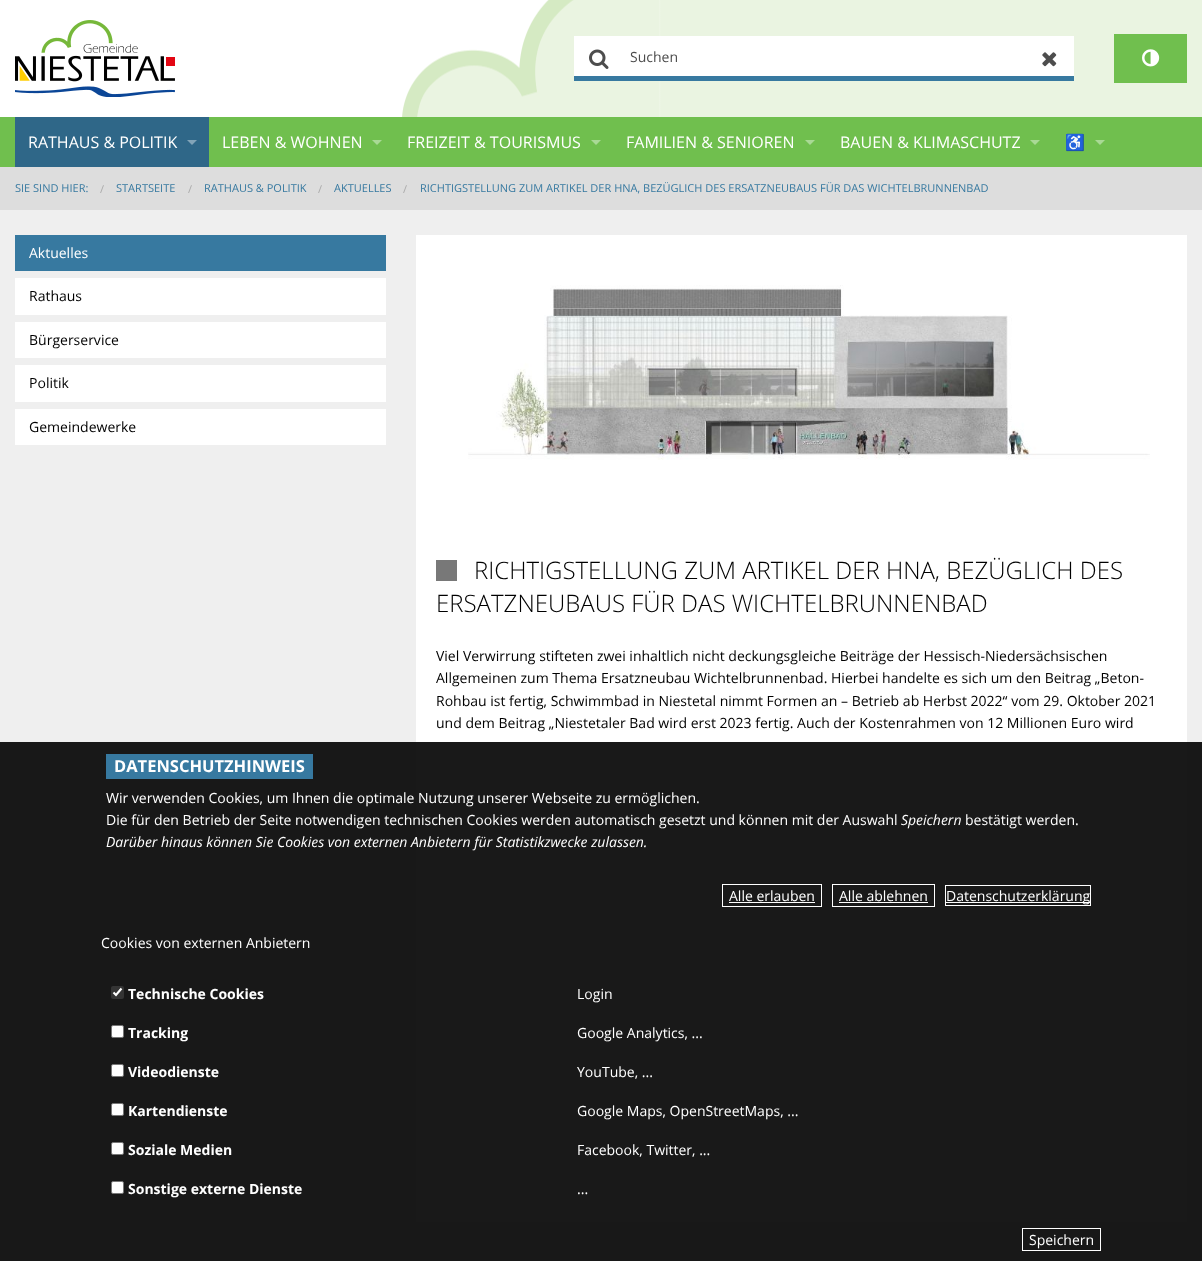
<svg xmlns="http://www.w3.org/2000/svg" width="1202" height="1261">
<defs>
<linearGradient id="g1" gradientUnits="userSpaceOnUse" x1="0" y1="59" x2="1202" y2="58"><stop offset="0" stop-color="#fff"/><stop offset="0.54" stop-color="#fff"/><stop offset="0.55" stop-color="#eaf4e1"/><stop offset="1" stop-color="#eaf4e1"/></linearGradient>
</defs>
<rect width="100%" height="100%" fill="#fff"/>
<rect x="650" width="552" height="117" fill="url(#g1)"/>
<image x="402" y="0" width="257" height="117" href="media/1.png"/>
<image x="15" y="20" width="160" height="77" href="media/2.png"/>
<rect x="574" y="36" width="500" height="40" fill="#fff"/>
<image x="589" y="49" width="20" height="20" href="media/3.png"/>
<rect x="574" y="76" width="500" height="5" fill="#3779a0"/>
<text x="630" y="62" style="font-family:Open Sans;font-size:14px;fill:#4d4d4d">Suchen</text>
<image x="1042" y="52" width="15" height="15" href="media/4.png"/>
<rect x="1114" y="34" width="73" height="49" fill="#70bf4e"/>
<image x="1142" y="49" width="18" height="18" href="media/5.png"/>
<rect y="117" width="1202" height="50" fill="#70bf4e"/>
<rect x="15" y="117" width="194" height="50" fill="#2f6788"/>
<text x="28" y="148" style="font-family:Open Sans;font-size:16px;fill:#fff">RATHAUS &amp; POLITIK</text>
<path d="M187 140h10l-5 5z" fill="#82a4b8"/>
<text x="222" y="148" style="font-family:Open Sans;font-size:16px;fill:#fff">LEBEN &amp; WOHNEN</text>
<path d="M372 140h10l-5 5z" fill="#a9d995"/>
<text x="407" y="148" style="font-family:Open Sans;font-size:16px;fill:#fff">FREIZEIT &amp; TOURISMUS</text>
<path d="M591 140h10l-5 5z" fill="#a9d995"/>
<text x="626" y="148" style="font-family:Open Sans;font-size:16px;fill:#fff">FAMILIEN &amp; SENIOREN</text>
<path d="M805 140h10l-5 5z" fill="#a9d995"/>
<text x="840" y="148" style="font-family:Open Sans;font-size:16px;fill:#fff">BAUEN &amp; KLIMASCHUTZ</text>
<path d="M1030 140h10l-5 5z" fill="#a9d995"/>
<text x="1065" y="148" style="font-family:Noto Color Emoji;font-size:16px;fill:#fff">♿</text>
<path d="M1095 140h10l-5 5z" fill="#a9d995"/>
<rect y="167" width="1202" height="43" fill="#ddd"/>
<text x="15" y="192" style="font-family:Open Sans;font-size:11px;fill:#3779a0">SIE SIND HIER:</text>
<text x="100" y="193" style="font-family:Open Sans;font-size:11px;fill:#aaa">/</text>
<text x="116" y="192" style="font-family:Open Sans;font-size:11px;fill:#3779a0">STARTSEITE</text>
<text x="188" y="193" style="font-family:Open Sans;font-size:11px;fill:#aaa">/</text>
<text x="204" y="192" style="font-family:Open Sans;font-size:11px;fill:#3779a0">RATHAUS &amp; POLITIK</text>
<text x="318" y="193" style="font-family:Open Sans;font-size:11px;fill:#aaa">/</text>
<text x="334" y="192" style="font-family:Open Sans;font-size:11px;fill:#3779a0">AKTUELLES</text>
<text x="403" y="193" style="font-family:Open Sans;font-size:11px;fill:#aaa">/</text>
<text x="420" y="192" style="font-family:Open Sans;font-size:11px;fill:#3779a0">RICHTIGSTELLUNG ZUM ARTIKEL DER HNA, BEZÜGLICH DES ERSATZNEUBAUS FÜR DAS WICHTELBRUNNENBAD</text>
<rect y="210" width="1202" height="1051" fill="#efefef"/>
<rect x="15" y="235" width="371" height="36" fill="#3779a0"/>
<text x="29" y="258" style="font-family:Open Sans;font-size:14px;fill:#fff">Aktuelles</text>
<rect x="15" y="278" width="371" height="37" fill="#fff"/>
<text x="29" y="301" style="font-family:Open Sans;font-size:14px;fill:#000">Rathaus</text>
<rect x="15" y="322" width="371" height="36" fill="#fff"/>
<text x="29" y="345" style="font-family:Open Sans;font-size:14px;fill:#000">Bürgerservice</text>
<rect x="15" y="365" width="371" height="37" fill="#fff"/>
<text x="29" y="388" style="font-family:Open Sans;font-size:14px;fill:#000">Politik</text>
<rect x="15" y="409" width="371" height="36" fill="#fff"/>
<text x="29" y="432" style="font-family:Open Sans;font-size:14px;fill:#000">Gemeindewerke</text>
<rect x="416" y="235" width="771" height="987" fill="#fff"/>
<image x="468" y="285" width="682" height="175" href="media/6.png"/>
<rect x="436" y="560" width="21" height="21" fill="#787878"/>
<text x="474" y="579" style="font-family:Open Sans;font-size:24px;font-weight:300;fill:#000">RICHTIGSTELLUNG ZUM ARTIKEL DER HNA, BEZÜGLICH DES</text>
<text x="436" y="612" style="font-family:Open Sans;font-size:24px;font-weight:300;fill:#000">ERSATZNEUBAUS FÜR DAS WICHTELBRUNNENBAD</text>
<text x="436" y="661" style="font-family:Open Sans;font-size:14px;fill:#000">Viel Verwirrung stifteten zwei inhaltlich nicht deckungsgleiche Beiträge der Hessisch-Niedersächsischen</text>
<text x="436" y="683" style="font-family:Open Sans;font-size:14px;fill:#000">Allgemeinen zum Thema Ersatzneubau Wichtelbrunnenbad. Hierbei handelte es sich um den Beitrag „Beton-</text>
<text x="436" y="706" style="font-family:Open Sans;font-size:14px;fill:#000">Rohbau ist fertig, Schwimmbad in Niestetal nimmt Formen an – Betrieb ab Herbst 2022“ vom 29. Oktober 2021</text>
<text x="436" y="728" style="font-family:Open Sans;font-size:14px;fill:#000">und dem Beitrag „Niestetaler Bad wird erst 2023 fertig. Auch der Kostenrahmen von 12 Millionen Euro wird</text>
<rect y="742" width="1202" height="519" fill="#000000e6"/>
<rect x="106" y="754" width="207" height="25" fill="#3779a0"/>
<text x="114" y="772" style="font-family:Open Sans;font-size:16.5px;font-weight:bold;fill:#fff">DATENSCHUTZHINWEIS</text>
<text x="106" y="803" style="font-family:Open Sans;font-size:14px;fill:#fff">Wir verwenden Cookies, um Ihnen die optimale Nutzung unserer Webseite zu ermöglichen.</text>
<text x="106" y="825" style="font-family:Open Sans;font-size:14px;fill:#fff">Die für den Betrieb der Seite notwendigen technischen Cookies werden automatisch gesetzt und können mit der Auswahl</text>
<text x="901" y="825" style="font-family:Open Sans;font-size:14px;font-style:italic;fill:#fff">Speichern</text>
<text x="965" y="825" style="font-family:Open Sans;font-size:14px;fill:#fff">bestätigt werden.</text>
<text x="106" y="847" style="font-family:Open Sans;font-size:14px;font-style:italic;fill:#fff">Darüber hinaus können Sie Cookies von externen Anbietern für Statistikzwecke zulassen.</text>
<rect x="722.5" y="884.5" width="99" height="22" fill="none" stroke="#fff"/>
<text x="729" y="901" style="font-family:Open Sans;font-size:14px;fill:#fff">Alle erlauben</text>
<rect x="729" y="902" width="86" height="1" fill="#fff"/>
<rect x="832.5" y="884.5" width="102" height="22" fill="none" stroke="#fff"/>
<text x="839" y="901" style="font-family:Open Sans;font-size:14px;fill:#fff">Alle ablehnen</text>
<rect x="839" y="902" width="89" height="1" fill="#fff"/>
<rect x="945.5" y="885.5" width="145" height="20" fill="none" stroke="#fff"/>
<rect x="946" y="902" width="144" height="1" fill="#fff"/>
<text x="946" y="901" style="font-family:Open Sans;font-size:14px;fill:#fff">Datenschutzerklärung</text>
<text x="101" y="948" style="font-family:Open Sans;font-size:14px;fill:#fff">Cookies von externen Anbietern</text>
<rect x="111" y="986" width="13" height="13" rx="2" fill="#343434"/>
<path d="M113.5 992.5l2.5 2.5l5.5-6.5" fill="none" stroke="#fff" stroke-width="2.1"/>
<text x="128" y="999" style="font-family:Open Sans;font-size:14px;font-weight:bold;fill:#fff">Technische Cookies</text>
<text x="577" y="999" style="font-family:Open Sans;font-size:14px;fill:#fff">Login</text>
<rect x="111.5" y="1025.5" width="12" height="12" rx="1.5" fill="#fff" stroke="#767676"/>
<text x="128" y="1038" style="font-family:Open Sans;font-size:14px;font-weight:bold;fill:#fff">Tracking</text>
<text x="577" y="1038" style="font-family:Open Sans;font-size:14px;fill:#fff">Google Analytics, ...</text>
<rect x="111.5" y="1064.5" width="12" height="12" rx="1.5" fill="#fff" stroke="#767676"/>
<text x="128" y="1077" style="font-family:Open Sans;font-size:14px;font-weight:bold;fill:#fff">Videodienste</text>
<text x="577" y="1077" style="font-family:Open Sans;font-size:14px;fill:#fff">YouTube, ...</text>
<rect x="111.5" y="1103.5" width="12" height="12" rx="1.5" fill="#fff" stroke="#767676"/>
<text x="128" y="1116" style="font-family:Open Sans;font-size:14px;font-weight:bold;fill:#fff">Kartendienste</text>
<text x="577" y="1116" style="font-family:Open Sans;font-size:14px;fill:#fff">Google Maps, OpenStreetMaps, ...</text>
<rect x="111.5" y="1142.5" width="12" height="12" rx="1.5" fill="#fff" stroke="#767676"/>
<text x="128" y="1155" style="font-family:Open Sans;font-size:14px;font-weight:bold;fill:#fff">Soziale Medien</text>
<text x="577" y="1155" style="font-family:Open Sans;font-size:14px;fill:#fff">Facebook, Twitter, ...</text>
<rect x="111.5" y="1181.5" width="12" height="12" rx="1.5" fill="#fff" stroke="#767676"/>
<text x="128" y="1194" style="font-family:Open Sans;font-size:14px;font-weight:bold;fill:#fff">Sonstige externe Dienste</text>
<text x="577" y="1194" style="font-family:Open Sans;font-size:14px;fill:#fff">...</text>
<rect x="1022.5" y="1228.5" width="78" height="22" fill="none" stroke="#fff"/>
<text x="1029" y="1245" style="font-family:Open Sans;font-size:14px;fill:#fff">Speichern</text>
</svg>
